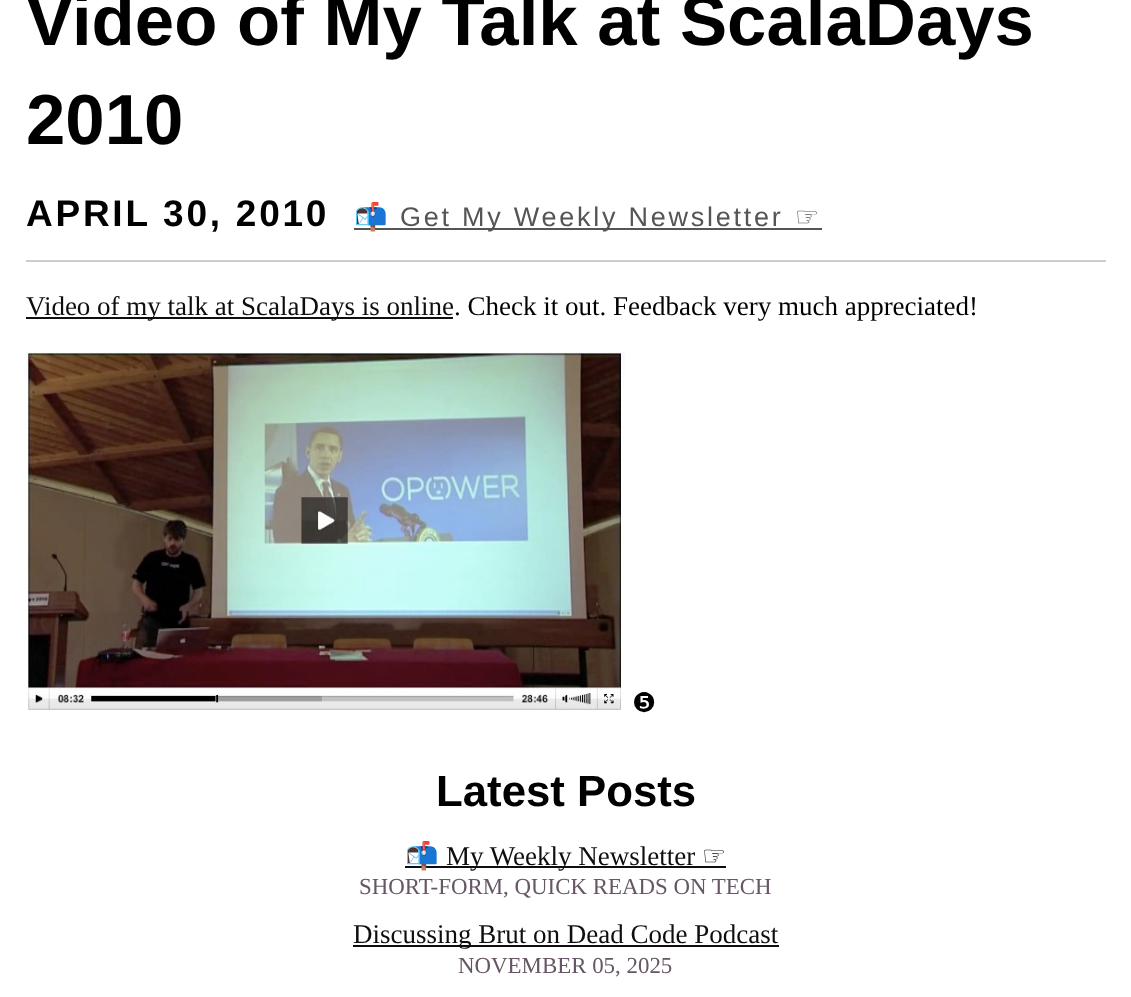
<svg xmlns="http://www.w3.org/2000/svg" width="1131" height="997">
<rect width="100%" height="100%" fill="#fff"/>
<rect x="26" y="260" width="1080" height="2" fill="#d3c9d3"/>
<text x="26" y="45" style="font-family:Liberation Sans;font-size:70.75px;font-weight:bold;fill:#000">Video of My Talk at ScalaDays</text>
<text x="26" y="144" style="font-family:Liberation Sans;font-size:70.75px;font-weight:bold;fill:#000">2010</text>
<text x="26" y="226" style="font-family:Liberation Sans;font-size:37px;font-weight:bold;letter-spacing:2.75px;fill:#000">APRIL 30, 2010</text>
<rect x="354" y="228" width="468" height="2" fill="#555"/>
<text x="354" y="226" style="font-family:Noto Color Emoji;font-size:27px;letter-spacing:2.75px;fill:#555">📬</text>
<text x="400" y="226" style="font-family:Liberation Sans;font-size:27px;letter-spacing:2.75px;fill:#555">Get My Weekly Newsletter</text>
<text x="795" y="226" style="font-family:DejaVu Sans;font-size:27px;letter-spacing:2.75px;fill:#555">☞</text>
<rect x="26" y="317" width="427" height="2" fill="#100d10"/>
<text x="26" y="315" style="font-family:Liberation Serif;font-size:27px;fill:#100d10">Video of my talk at ScalaDays is online</text>
<text x="454" y="315" style="font-family:Liberation Serif;font-size:27px;fill:#000">. Check it out. Feedback very much appreciated!</text>
<image x="26" y="352" width="599" height="358" href="media/1.png"/>
<text x="632" y="712" style="font-family:DejaVu Sans;font-size:27px;fill:#000">❺</text>
<text x="436" y="806" style="font-family:Liberation Sans;font-size:43.75px;font-weight:bold;fill:#000">Latest Posts</text>
<rect x="405" y="866" width="321" height="2" fill="#100d10"/>
<text x="405" y="865" style="font-family:Noto Color Emoji;font-size:27px;fill:#100d10">📬</text>
<text x="446" y="865" style="font-family:Liberation Serif;font-size:27px;fill:#100d10">My Weekly Newsletter</text>
<text x="702" y="865" style="font-family:DejaVu Sans;font-size:27px;fill:#100d10">☞</text>
<text x="359" y="894" style="font-family:Liberation Serif;font-size:22.9px;fill:#665666">SHORT-FORM, QUICK READS ON TECH</text>
<rect x="353" y="945" width="426" height="2" fill="#100d10"/>
<text x="353" y="943" style="font-family:Liberation Serif;font-size:27px;fill:#100d10">Discussing Brut on Dead Code Podcast</text>
<text x="458" y="973" style="font-family:Liberation Serif;font-size:22.9px;fill:#665666">NOVEMBER 05, 2025</text>
</svg>
